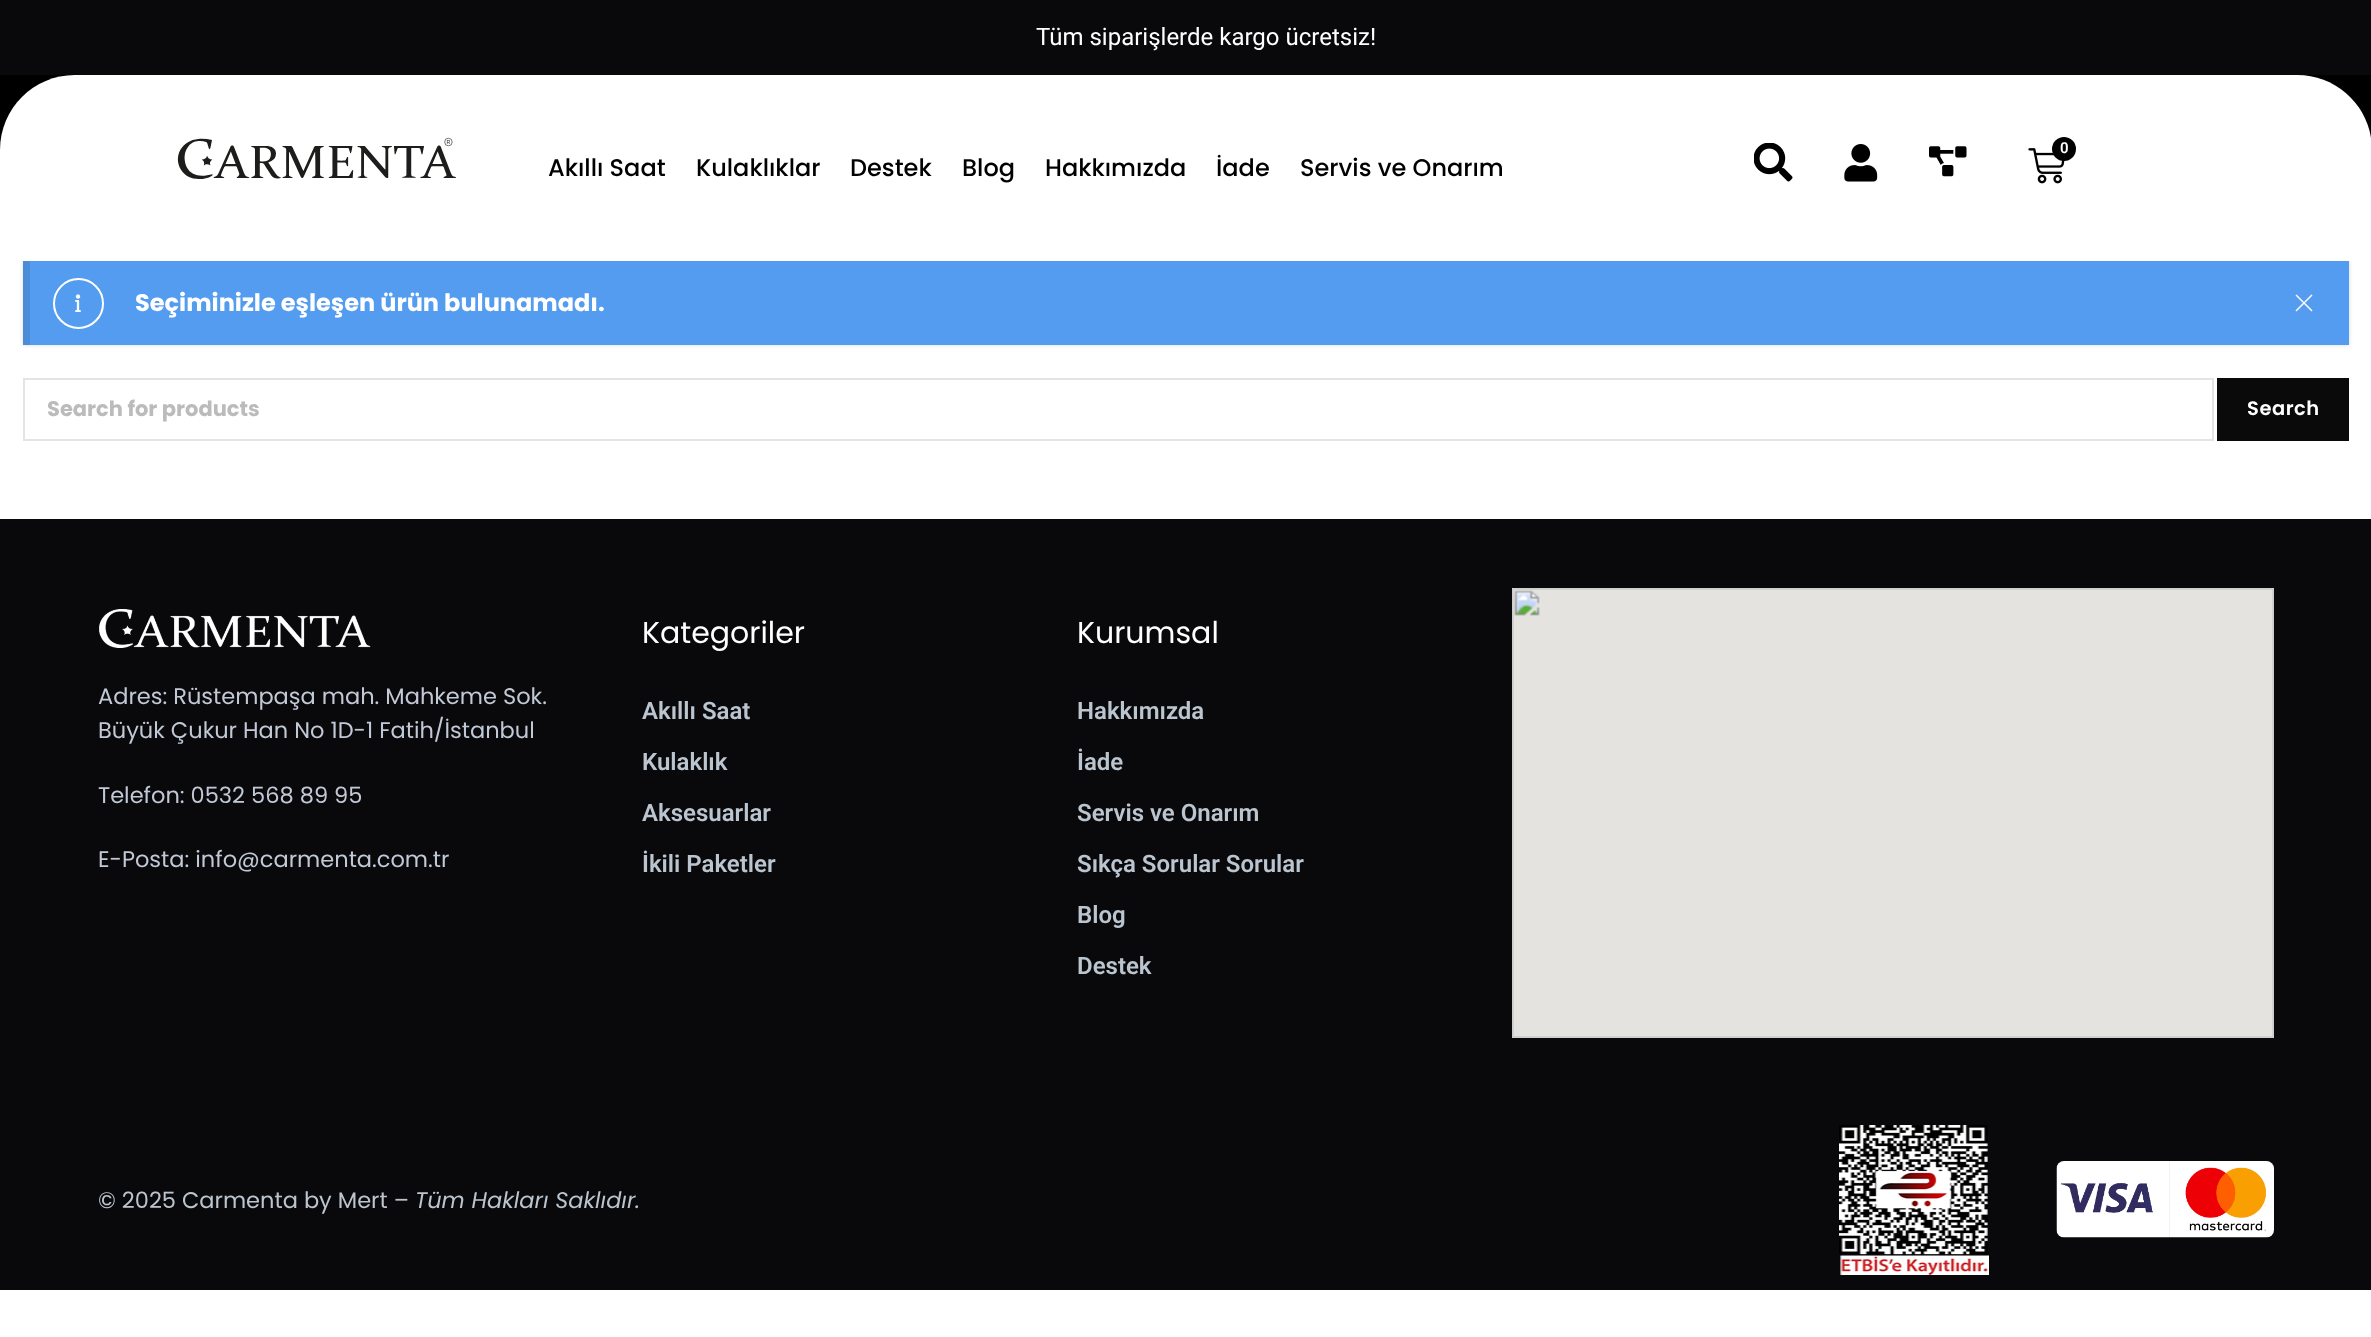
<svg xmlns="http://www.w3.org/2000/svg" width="2371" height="1337">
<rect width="100%" height="100%" fill="#fff"/>
<rect x="-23" y="-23" width="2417" height="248" fill="#000" filter="blur(7.5px)"/>
<rect width="2371" height="75" fill="#09090b"/>
<text x="1036" y="45" style="font-family:Roboto;font-size:24px;fill:#fff">Tüm siparişlerde kargo ücretsiz!</text>
<rect x="23" y="261" width="2326" height="84" fill="#00000026" filter="blur(2px)"/>
<path d="M75 75h2222c41.5 0 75 33.5 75 75v111h-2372v-111c0-41.5 33.5-75 75-75z" fill="#fff"/>
<image x="177" y="137" width="279" height="42" href="media/1.png"/>
<text x="548" y="176" style="font-family:Poppins;font-size:24px;font-weight:500;fill:#000">Akıllı Saat</text>
<text x="696" y="176" style="font-family:Poppins;font-size:24px;font-weight:500;fill:#000">Kulaklıklar</text>
<text x="850" y="176" style="font-family:Poppins;font-size:24px;font-weight:500;fill:#000">Destek</text>
<text x="962" y="176" style="font-family:Poppins;font-size:24px;font-weight:500;fill:#000">Blog</text>
<text x="1045" y="176" style="font-family:Poppins;font-size:24px;font-weight:500;fill:#000">Hakkımızda</text>
<text x="1216" y="176" style="font-family:Poppins;font-size:24px;font-weight:500;fill:#000">İade</text>
<text x="1300" y="176" style="font-family:Poppins;font-size:24px;font-weight:500;fill:#000">Servis ve Onarım</text>
<image x="1754" y="143" width="39" height="39" href="media/2.png"/>
<image x="1844" y="144" width="34" height="38" href="media/3.png"/>
<image x="1929" y="146" width="38" height="31" href="media/4.png"/>
<image x="2028" y="148" width="37" height="36" href="media/5.png"/>
<circle cx="2064" cy="149" r="12" fill="#000"/>
<text x="2060" y="153" style="font-family:Roboto;font-size:15px;font-weight:600;fill:#fff">0</text>
<rect x="30" y="261" width="2319" height="84" fill="#539cf0"/>
<rect x="23" y="261" width="7" height="84" fill="#4b8cd8"/>
<circle cx="78.5" cy="303.5" r="24.5" fill="none" stroke="#fff" stroke-width="2"/>
<image x="75" y="294" width="6" height="18" href="media/6.png"/>
<text x="135" y="311" style="font-family:Poppins;font-size:24px;font-weight:bold;fill:#fff">Seçiminizle eşleşen ürün bulunamadı.</text>
<image x="2295" y="294" width="18" height="18" href="media/7.png"/>
<rect x="24" y="379" width="2189" height="61" fill="none" stroke="#e4e4e4" stroke-width="2"/>
<text x="47" y="416" style="font-family:Poppins;font-size:21px;font-weight:bold;fill:#bbb">Search for products</text>
<rect x="2217" y="378" width="132" height="63" fill="#0a0a0a"/>
<text x="2247" y="415" style="font-family:Poppins;font-size:19.5px;font-weight:600;letter-spacing:0.5px;fill:#fff">Search</text>
<rect y="519" width="2371" height="590" fill="#09090b"/>
<image x="99" y="609" width="272" height="39" href="media/8.png"/>
<text x="98" y="704" style="font-family:Poppins;font-size:22.5px;fill:#c1c8d6">Adres: Rüstempaşa mah. Mahkeme Sok.</text>
<text x="98" y="738" style="font-family:Poppins;font-size:22.5px;fill:#c1c8d6">Büyük Çukur Han No 1D-1 Fatih/İstanbul</text>
<text x="98" y="803" style="font-family:Poppins;font-size:22.5px;fill:#c1c8d6">Telefon: 0532 568 89 95</text>
<text x="98" y="867" style="font-family:Poppins;font-size:22.5px;fill:#c1c8d6">E-Posta: info@carmenta.com.tr</text>
<text x="642" y="643" style="font-family:Poppins;font-size:30px;fill:#fff">Kategoriler</text>
<text x="642" y="719" style="font-family:Roboto;font-size:24px;font-weight:600;fill:#bbc5cf">Akıllı Saat</text>
<text x="642" y="770" style="font-family:Roboto;font-size:24px;font-weight:600;fill:#bbc5cf">Kulaklık</text>
<text x="642" y="821" style="font-family:Roboto;font-size:24px;font-weight:600;fill:#bbc5cf">Aksesuarlar</text>
<text x="642" y="872" style="font-family:Roboto;font-size:24px;font-weight:600;fill:#bbc5cf">İkili Paketler</text>
<text x="1077" y="643" style="font-family:Poppins;font-size:30px;fill:#fff">Kurumsal</text>
<text x="1077" y="719" style="font-family:Roboto;font-size:24px;font-weight:600;fill:#bbc5cf">Hakkımızda</text>
<text x="1077" y="770" style="font-family:Roboto;font-size:24px;font-weight:600;fill:#bbc5cf">İade</text>
<text x="1077" y="821" style="font-family:Roboto;font-size:24px;font-weight:600;fill:#bbc5cf">Servis ve Onarım</text>
<text x="1077" y="872" style="font-family:Roboto;font-size:24px;font-weight:600;fill:#bbc5cf">Sıkça Sorular Sorular</text>
<text x="1077" y="923" style="font-family:Roboto;font-size:24px;font-weight:600;fill:#bbc5cf">Blog</text>
<text x="1077" y="974" style="font-family:Roboto;font-size:24px;font-weight:600;fill:#bbc5cf">Destek</text>
<image x="1512" y="588" width="762" height="450" href="media/9.png"/>
<rect y="1109" width="2371" height="1" fill="#0a0a0a"/>
<rect y="1110" width="2371" height="180" fill="#09090b"/>
<text x="98" y="1208" style="font-family:Poppins;font-size:22.5px;fill:#bbc5cf">© 2025 Carmenta by Mert –</text>
<text x="415" y="1208" style="font-family:Poppins;font-size:22.5px;font-style:italic;fill:#bbc5cf">Tüm Hakları Saklıdır.</text>
<image x="1839" y="1125" width="150" height="150" href="media/10.png"/>
<image x="2056" y="1161" width="218" height="77" href="media/11.png"/>
</svg>
